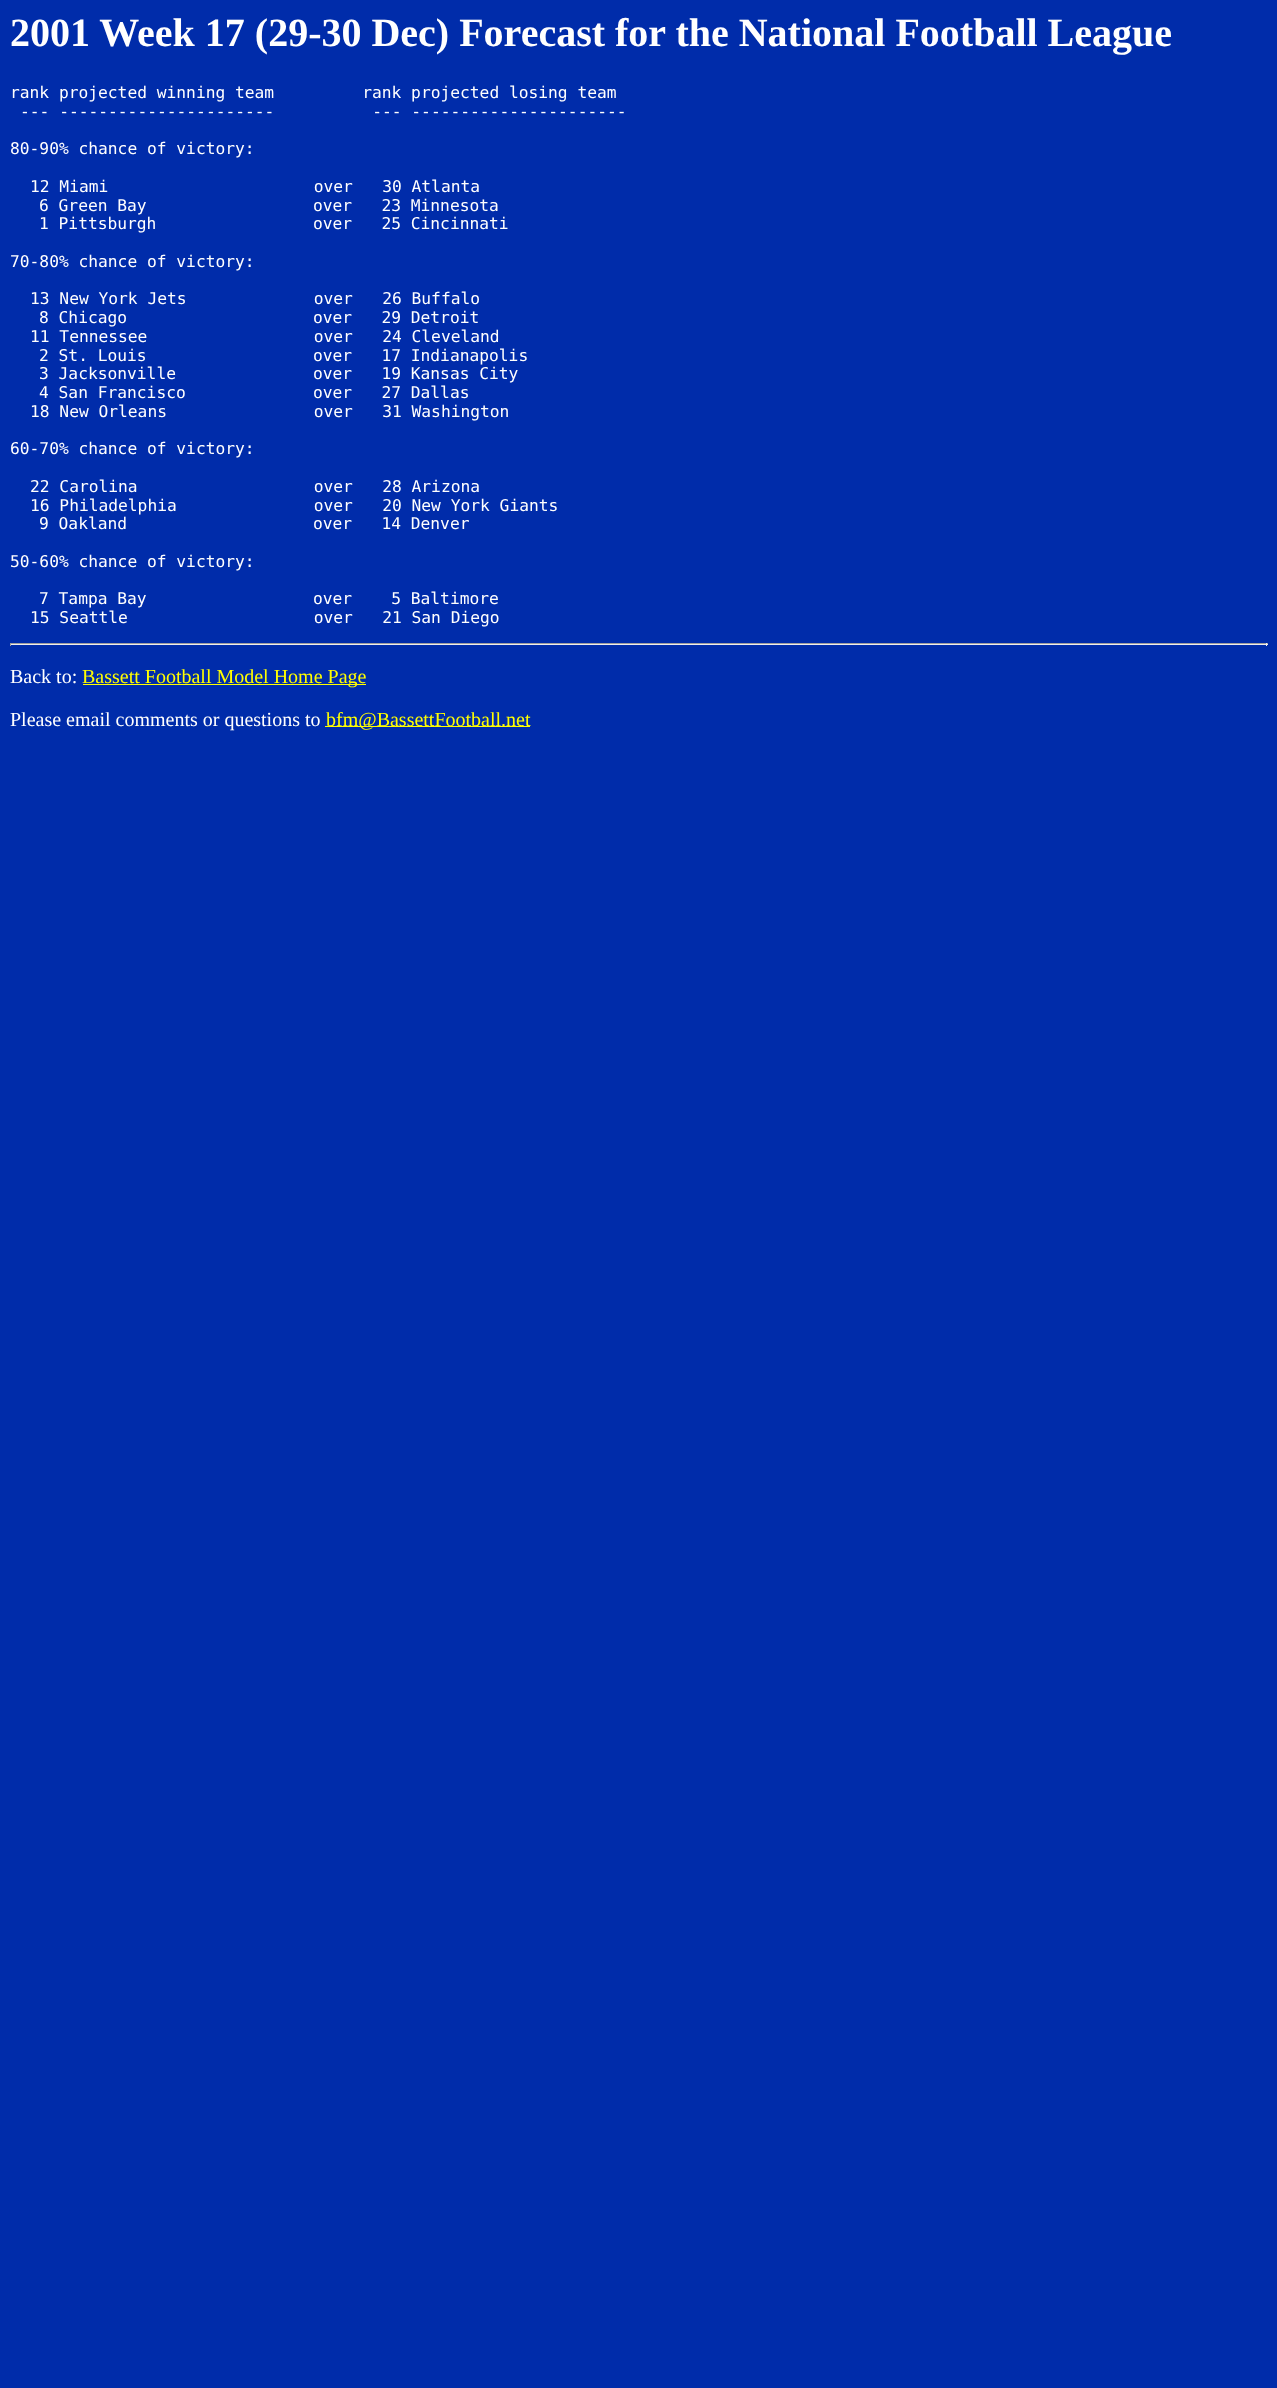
<svg xmlns="http://www.w3.org/2000/svg" width="1277" height="2388">
<rect width="100%" height="100%" fill="#002caa"/>
<text x="10" y="46" style="font-family:Liberation Serif;font-size:40px;font-weight:bold;fill:#fff">2001 Week 17 (29-30 Dec) Forecast for the National Football League</text>
<text x="10" y="98" style="font-family:DejaVu Sans Mono;font-size:16.25px;fill:#fff" xml:space="preserve">rank projected winning team         rank projected losing team</text>
<text x="20" y="117" style="font-family:DejaVu Sans Mono;font-size:16.25px;fill:#fff" xml:space="preserve">--- ----------------------          --- ----------------------</text>
<text x="10" y="154" style="font-family:DejaVu Sans Mono;font-size:16.25px;fill:#fff">80-90% chance of victory:</text>
<text x="30" y="192" style="font-family:DejaVu Sans Mono;font-size:16.25px;fill:#fff" xml:space="preserve">12 Miami                     over   30 Atlanta</text>
<text x="39" y="211" style="font-family:DejaVu Sans Mono;font-size:16.25px;fill:#fff" xml:space="preserve">6 Green Bay                 over   23 Minnesota</text>
<text x="39" y="229" style="font-family:DejaVu Sans Mono;font-size:16.25px;fill:#fff" xml:space="preserve">1 Pittsburgh                over   25 Cincinnati</text>
<text x="10" y="267" style="font-family:DejaVu Sans Mono;font-size:16.25px;fill:#fff">70-80% chance of victory:</text>
<text x="30" y="304" style="font-family:DejaVu Sans Mono;font-size:16.25px;fill:#fff" xml:space="preserve">13 New York Jets             over   26 Buffalo</text>
<text x="39" y="323" style="font-family:DejaVu Sans Mono;font-size:16.25px;fill:#fff" xml:space="preserve">8 Chicago                   over   29 Detroit</text>
<text x="30" y="342" style="font-family:DejaVu Sans Mono;font-size:16.25px;fill:#fff" xml:space="preserve">11 Tennessee                 over   24 Cleveland</text>
<text x="39" y="361" style="font-family:DejaVu Sans Mono;font-size:16.25px;fill:#fff" xml:space="preserve">2 St. Louis                 over   17 Indianapolis</text>
<text x="39" y="379" style="font-family:DejaVu Sans Mono;font-size:16.25px;fill:#fff" xml:space="preserve">3 Jacksonville              over   19 Kansas City</text>
<text x="39" y="398" style="font-family:DejaVu Sans Mono;font-size:16.25px;fill:#fff" xml:space="preserve">4 San Francisco             over   27 Dallas</text>
<text x="30" y="417" style="font-family:DejaVu Sans Mono;font-size:16.25px;fill:#fff" xml:space="preserve">18 New Orleans               over   31 Washington</text>
<text x="10" y="454" style="font-family:DejaVu Sans Mono;font-size:16.25px;fill:#fff">60-70% chance of victory:</text>
<text x="30" y="492" style="font-family:DejaVu Sans Mono;font-size:16.25px;fill:#fff" xml:space="preserve">22 Carolina                  over   28 Arizona</text>
<text x="30" y="511" style="font-family:DejaVu Sans Mono;font-size:16.25px;fill:#fff" xml:space="preserve">16 Philadelphia              over   20 New York Giants</text>
<text x="39" y="529" style="font-family:DejaVu Sans Mono;font-size:16.25px;fill:#fff" xml:space="preserve">9 Oakland                   over   14 Denver</text>
<text x="10" y="567" style="font-family:DejaVu Sans Mono;font-size:16.25px;fill:#fff">50-60% chance of victory:</text>
<text x="39" y="604" style="font-family:DejaVu Sans Mono;font-size:16.25px;fill:#fff" xml:space="preserve">7 Tampa Bay                 over    5 Baltimore</text>
<text x="30" y="623" style="font-family:DejaVu Sans Mono;font-size:16.25px;fill:#fff" xml:space="preserve">15 Seattle                   over   21 San Diego</text>
<rect x="10" y="643" width="1258" height="1" fill="#9f9f9f"/>
<rect x="1266" y="643" width="1" height="3" fill="#eee"/>
<rect x="10" y="644" width="1258" height="1" fill="#eee"/>
<rect x="10" y="643" width="1" height="3" fill="#9f9f9f"/>
<text x="10" y="683" style="font-family:Liberation Serif;font-size:20px;fill:#fff">Back to:</text>
<rect x="83" y="684" width="283" height="1" fill="#ff0"/>
<text x="82" y="683" style="font-family:Liberation Serif;font-size:20px;fill:#ff0">Bassett Football Model Home Page</text>
<text x="10" y="726" style="font-family:Liberation Serif;font-size:20px;fill:#fff">Please email comments or questions to</text>
<rect x="325" y="726" width="205" height="1" fill="#ff0"/>
<text x="326" y="726" style="font-family:Liberation Serif;font-size:20px;fill:#ff0">bfm@BassettFootball.net</text>
</svg>
